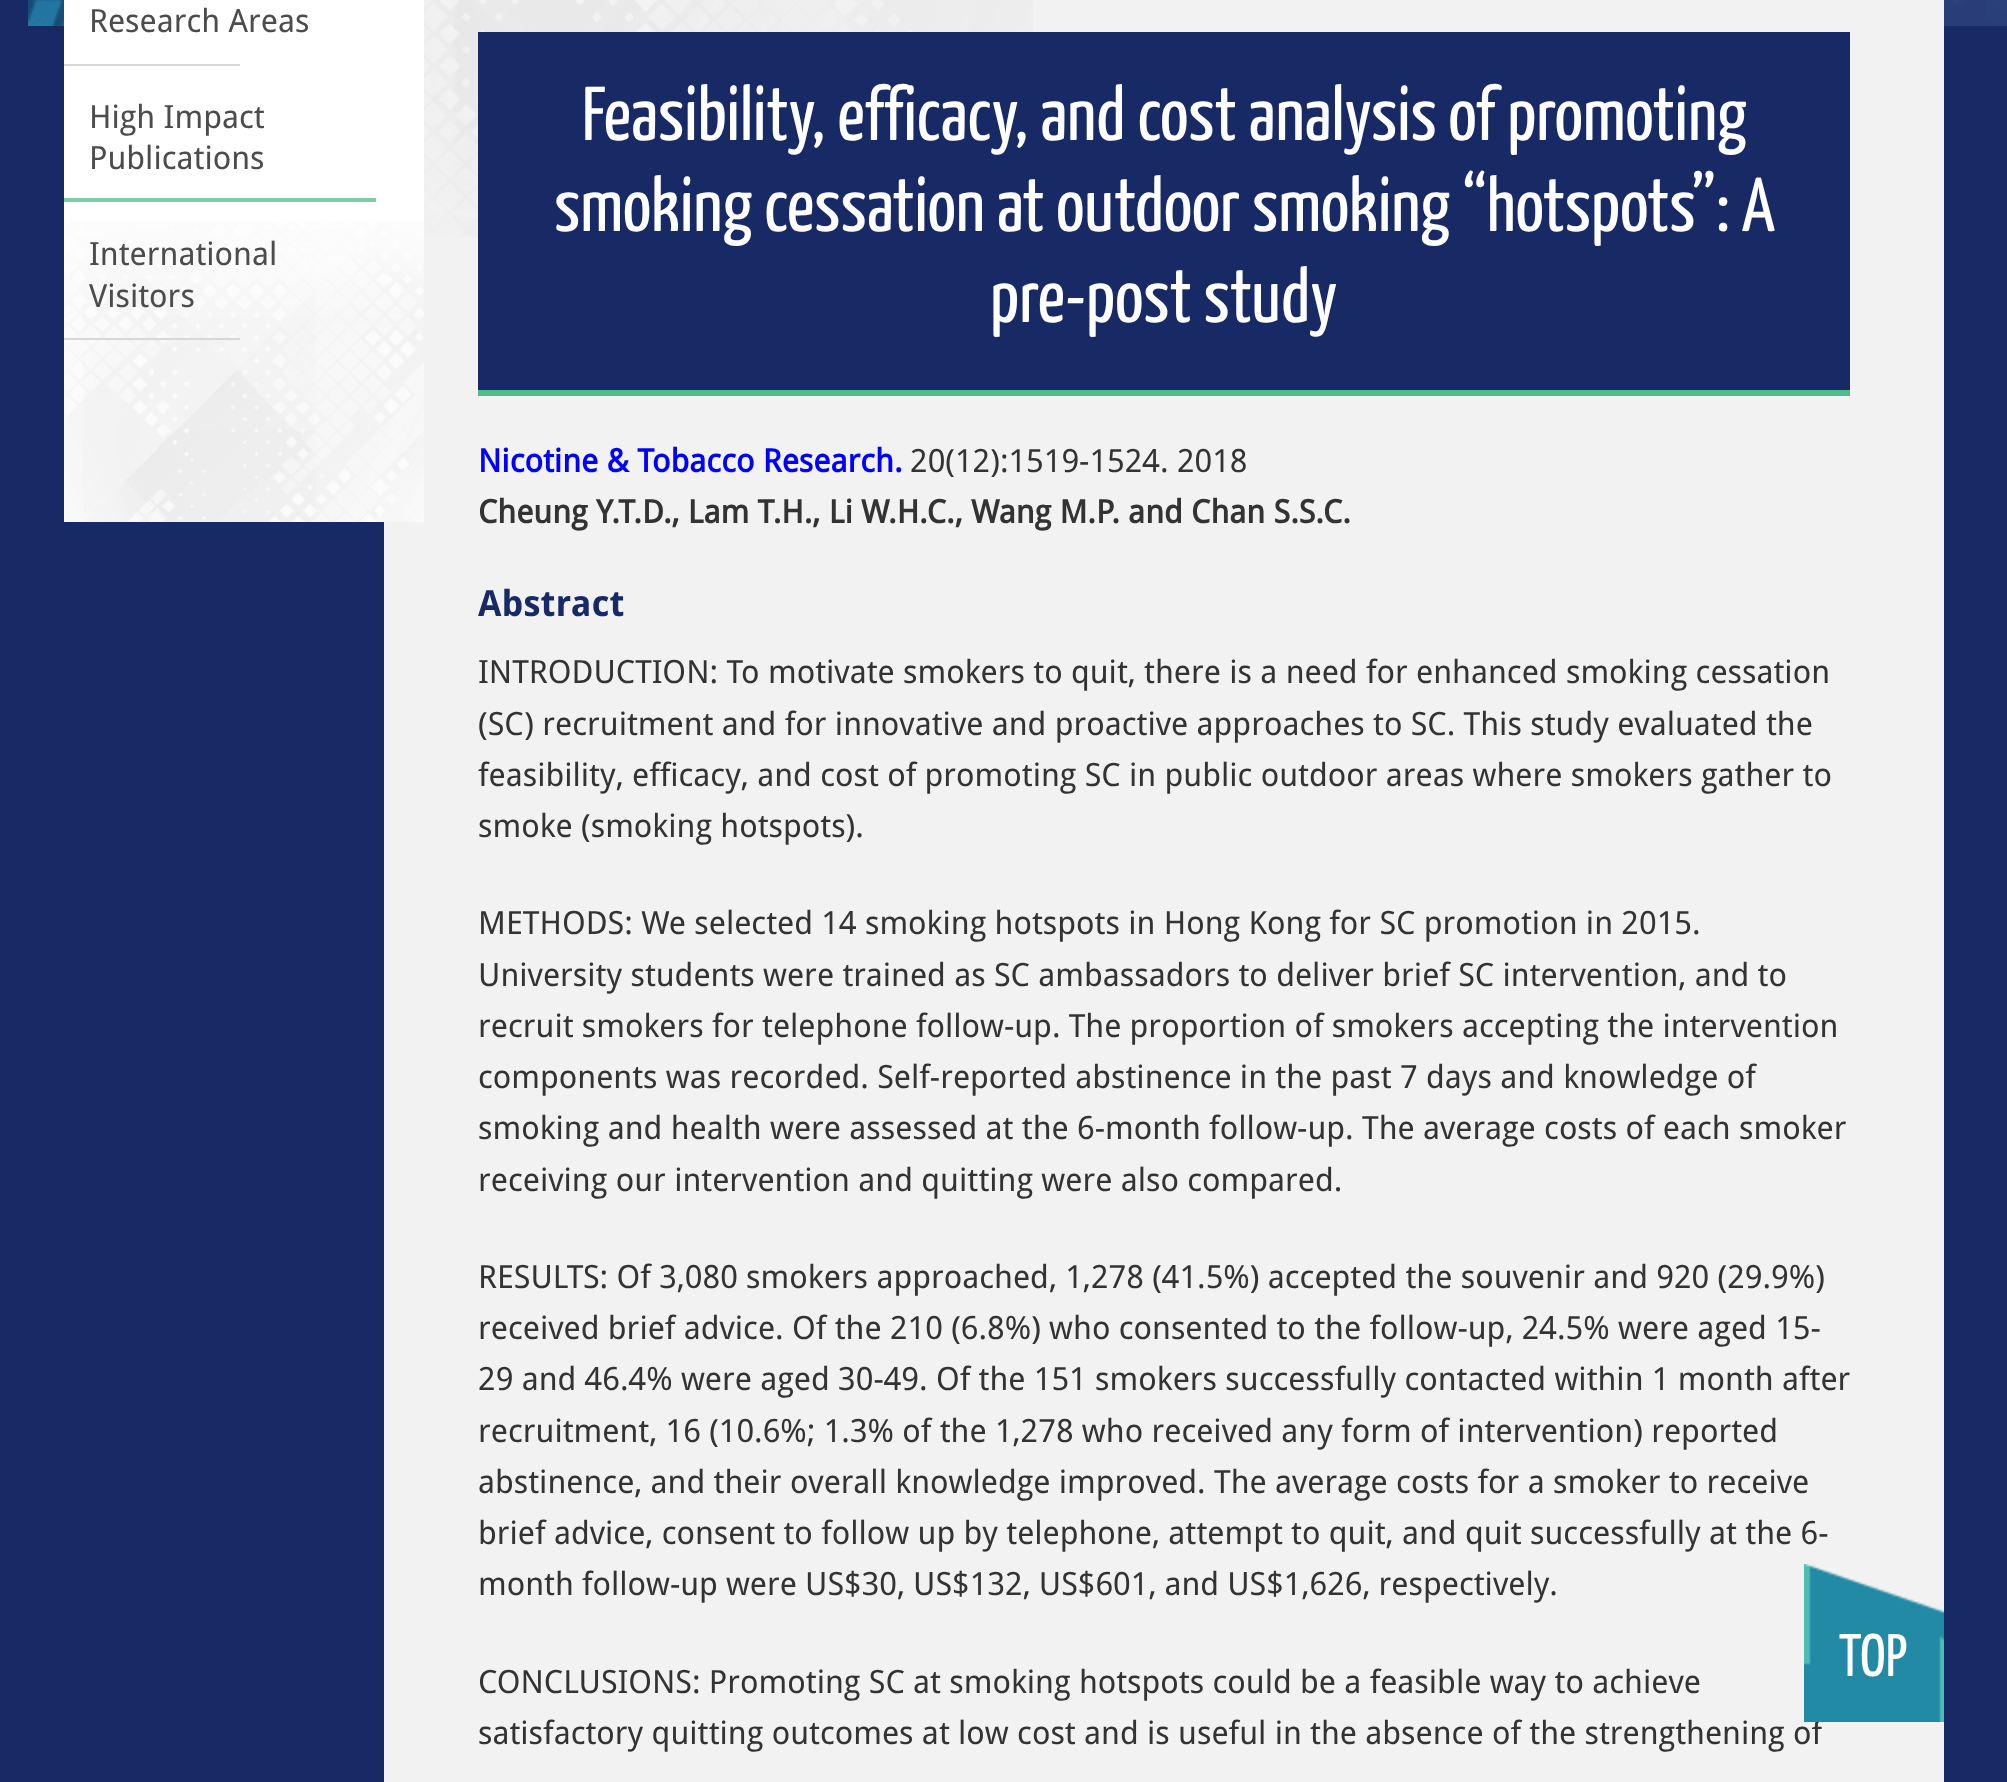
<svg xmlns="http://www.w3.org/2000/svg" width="2007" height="1782">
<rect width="100%" height="100%" fill="#182a66"/>
<image x="28" y="0" width="1978" height="26" href="media/1.png"/>
<image x="1944" y="0" width="63" height="26" href="media/2.png"/>
<rect x="384" width="1560" height="1782" fill="#f2f2f2"/>
<rect x="64" width="360" height="522" fill="#fff"/>
<image x="64" y="221" width="360" height="301" href="media/3.png"/>
<text x="89" y="32" style="font-family:Droid Sans;font-size:32.05px;fill:#4c4c4c">Research Areas</text>
<rect x="64" y="64" width="176" height="2" fill="#d7d7d7"/>
<text x="89" y="128" style="font-family:Droid Sans;font-size:32.05px;fill:#4c4c4c">High Impact</text>
<text x="89" y="169" style="font-family:Droid Sans;font-size:32.05px;fill:#4c4c4c">Publications</text>
<rect x="64" y="198" width="312" height="4" fill="#7ecfa8"/>
<text x="89" y="265" style="font-family:Droid Sans;font-size:32.05px;fill:#4c4c4c">International</text>
<text x="89" y="307" style="font-family:Droid Sans;font-size:32.05px;fill:#4c4c4c">Visitors</text>
<rect x="64" y="338" width="176" height="2" fill="#d7d7d7"/>
<image x="424" y="0" width="609" height="237" href="media/4.png"/>
<rect x="478" y="32" width="1372" height="358" fill="#182a66"/>
<rect x="478" y="390" width="1372" height="6" fill="#4ebd88"/>
<text x="582" y="140" style="font-family:Yanone Kaffeesatz;font-size:76.1px;fill:#fff">Feasibility, efficacy, and cost analysis of promoting</text>
<text x="554" y="231" style="font-family:Yanone Kaffeesatz;font-size:76.1px;fill:#fff">smoking cessation at outdoor smoking “hotspots”: A</text>
<text x="990" y="322" style="font-family:Yanone Kaffeesatz;font-size:76.1px;fill:#fff">pre-post study</text>
<text x="478" y="472" style="font-family:Droid Sans;font-size:32.05px;font-weight:bold;fill:#00f">Nicotine &amp; Tobacco Research.</text>
<text x="910" y="472" style="font-family:Droid Sans;font-size:32.05px;fill:#333">20(12):1519-1524. 2018</text>
<text x="478" y="523" style="font-family:Droid Sans;font-size:32.05px;font-weight:bold;fill:#333">Cheung Y.T.D., Lam T.H., Li W.H.C., Wang M.P. and Chan S.S.C.</text>
<text x="478" y="616" style="font-family:'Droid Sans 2';font-size:36px;font-weight:bold;fill:#182a66">Abstract</text>
<text x="478" y="683" style="font-family:Droid Sans;font-size:32.05px;fill:#333">INTRODUCTION: To motivate smokers to quit, there is a need for enhanced smoking cessation</text>
<text x="478" y="735" style="font-family:Droid Sans;font-size:32.05px;fill:#333">(SC) recruitment and for innovative and proactive approaches to SC. This study evaluated the</text>
<text x="478" y="786" style="font-family:Droid Sans;font-size:32.05px;fill:#333">feasibility, efficacy, and cost of promoting SC in public outdoor areas where smokers gather to</text>
<text x="478" y="837" style="font-family:Droid Sans;font-size:32.05px;fill:#333">smoke (smoking hotspots).</text>
<text x="478" y="934" style="font-family:Droid Sans;font-size:32.05px;fill:#333">METHODS: We selected 14 smoking hotspots in Hong Kong for SC promotion in 2015.</text>
<text x="478" y="986" style="font-family:Droid Sans;font-size:32.05px;fill:#333">University students were trained as SC ambassadors to deliver brief SC intervention, and to</text>
<text x="478" y="1037" word-spacing="-0.1" style="font-family:Droid Sans;font-size:32.05px;fill:#333">recruit smokers for telephone follow-up. The proportion of smokers accepting the intervention</text>
<text x="478" y="1088" style="font-family:Droid Sans;font-size:32.05px;fill:#333">components was recorded. Self-reported abstinence in the past 7 days and knowledge of</text>
<text x="478" y="1139" style="font-family:Droid Sans;font-size:32.05px;fill:#333">smoking and health were assessed at the 6-month follow-up. The average costs of each smoker</text>
<text x="478" y="1191" style="font-family:Droid Sans;font-size:32.05px;fill:#333">receiving our intervention and quitting were also compared.</text>
<text x="478" y="1288" style="font-family:Droid Sans;font-size:32.05px;fill:#333">RESULTS: Of 3,080 smokers approached, 1,278 (41.5%) accepted the souvenir and 920 (29.9%)</text>
<text x="478" y="1339" style="font-family:Droid Sans;font-size:32.05px;fill:#333">received brief advice. Of the 210 (6.8%) who consented to the follow-up, 24.5% were aged 15-</text>
<text x="478" y="1390" style="font-family:Droid Sans;font-size:32.05px;fill:#333">29 and 46.4% were aged 30-49. Of the 151 smokers successfully contacted within 1 month after</text>
<text x="478" y="1442" style="font-family:Droid Sans;font-size:32.05px;fill:#333">recruitment, 16 (10.6%; 1.3% of the 1,278 who received any form of intervention) reported</text>
<text x="478" y="1493" style="font-family:Droid Sans;font-size:32.05px;fill:#333">abstinence, and their overall knowledge improved. The average costs for a smoker to receive</text>
<text x="478" y="1544" style="font-family:Droid Sans;font-size:32.05px;fill:#333">brief advice, consent to follow up by telephone, attempt to quit, and quit successfully at the 6-</text>
<text x="478" y="1595" word-spacing="-0.25" style="font-family:Droid Sans;font-size:32.05px;fill:#333">month follow-up were US$30, US$132, US$601, and US$1,626, respectively.</text>
<text x="478" y="1693" style="font-family:Droid Sans;font-size:32.05px;fill:#333">CONCLUSIONS: Promoting SC at smoking hotspots could be a feasible way to achieve</text>
<text x="478" y="1744" style="font-family:Droid Sans;font-size:32.05px;fill:#333">satisfactory quitting outcomes at low cost and is useful in the absence of the strengthening of</text>
<image x="1804" y="1564" width="140" height="158" href="media/5.png"/>
<text x="1839" y="1676" style="font-family:Yanone Kaffeesatz;font-size:60px;fill:#fff">TOP</text>
</svg>
